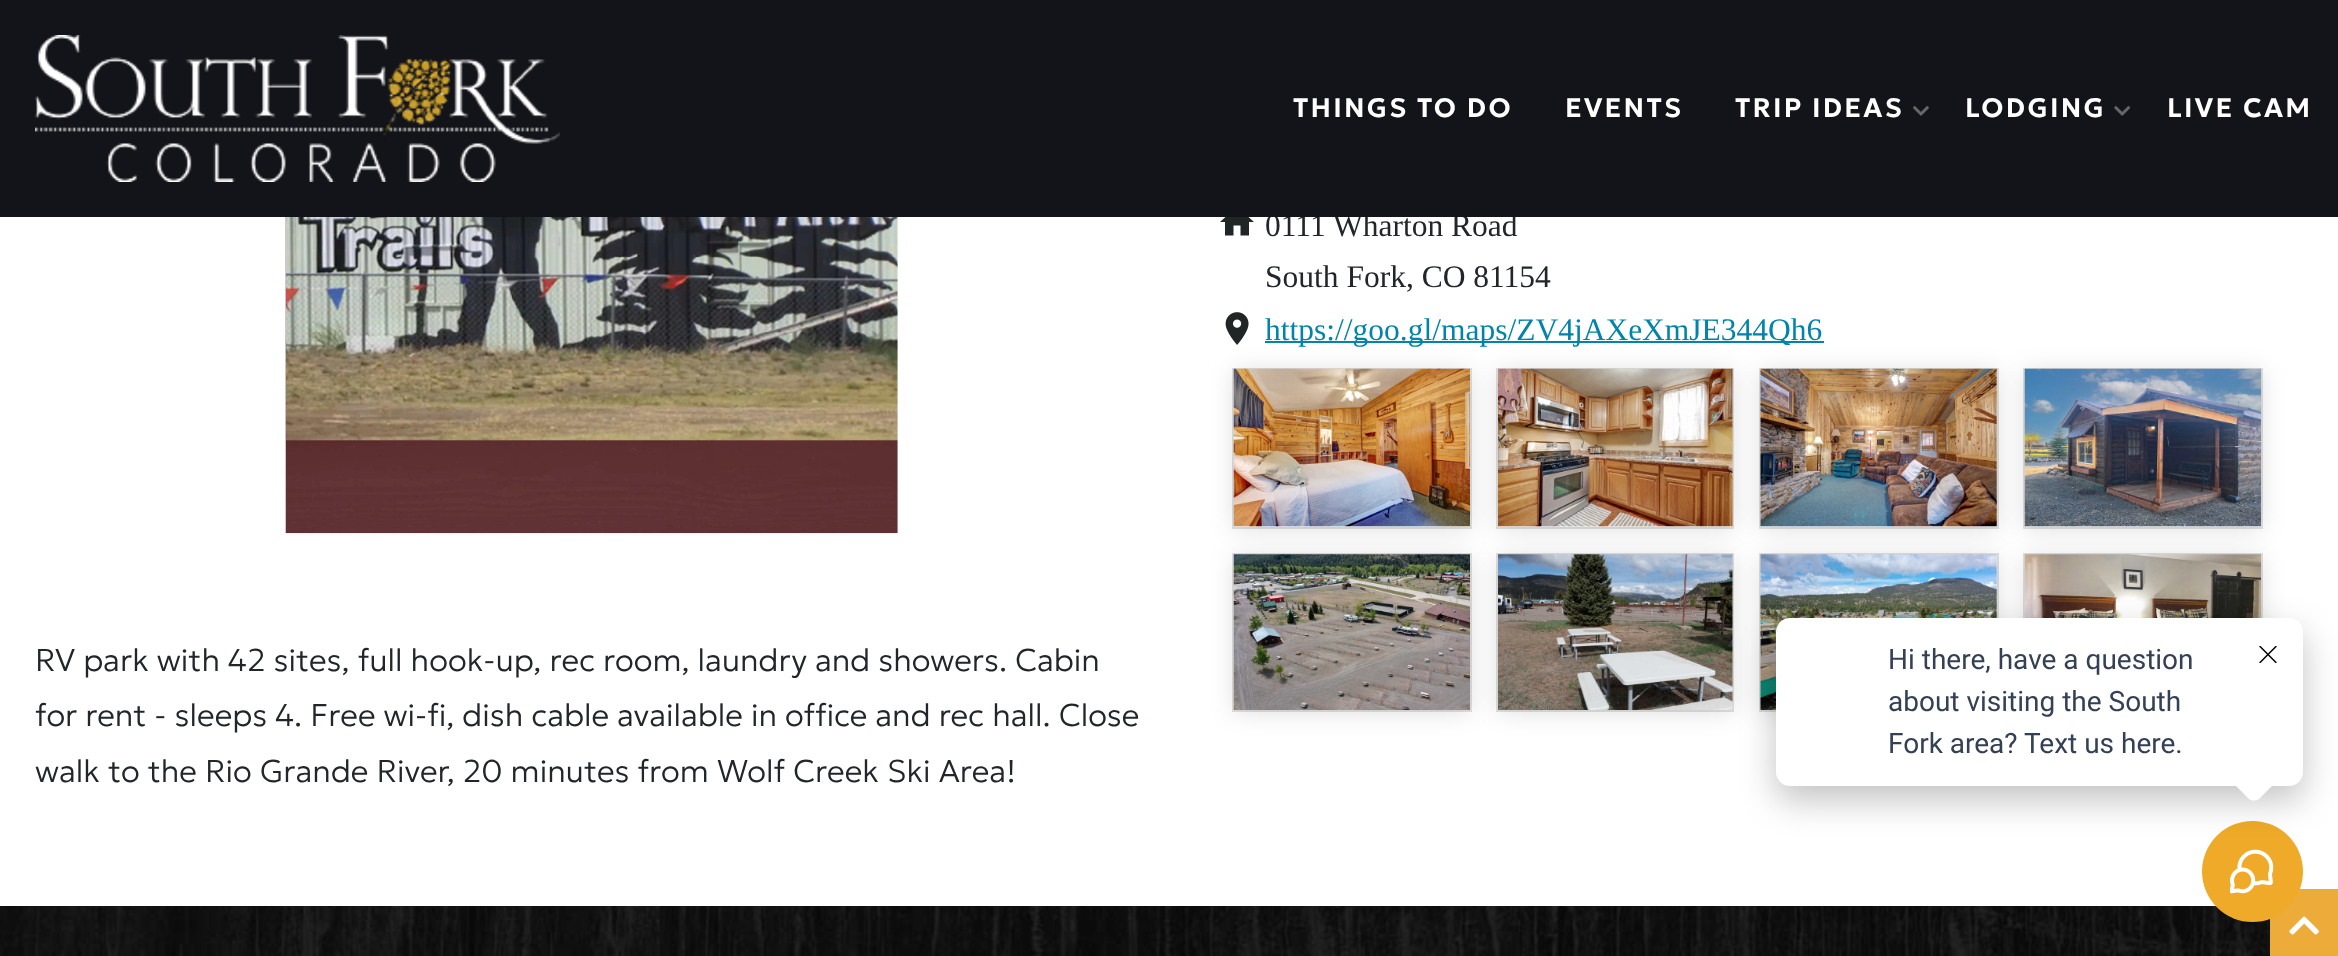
<svg xmlns="http://www.w3.org/2000/svg" width="2338" height="956">
<rect width="100%" height="100%" fill="#fff"/>
<path d="M1233.5 235.5v-10h7v10h8.5v-13.5h5l-17-15.5l-17 15.5h5v13.5z" fill="#202526"/>
<text x="1265" y="236" style="font-family:Liberation Serif;font-size:31.5px;fill:#22262a">0111 Wharton Road</text>
<rect width="2338" height="217" fill="#131419"/>
<image x="35" y="35" width="525" height="147" href="media/1.png"/>
<text x="1293" y="117" style="font-family:Geologica;font-size:26.75px;font-weight:600;letter-spacing:2.25px;fill:#fff">THINGS TO DO</text>
<text x="1565" y="117" style="font-family:Geologica;font-size:26.75px;font-weight:600;letter-spacing:2.25px;fill:#fff">EVENTS</text>
<text x="1735" y="117" style="font-family:Geologica;font-size:26.75px;font-weight:600;letter-spacing:2.25px;fill:#fff">TRIP IDEAS</text>
<image x="1913" y="106" width="16" height="10" href="media/2.png"/>
<text x="1965" y="117" style="font-family:Geologica;font-size:26.75px;font-weight:600;letter-spacing:2.25px;fill:#fff">LODGING</text>
<image x="2114" y="106" width="17" height="10" href="media/3.png"/>
<text x="2167" y="117" style="font-family:Geologica;font-size:26.75px;font-weight:600;letter-spacing:2.25px;fill:#fff">LIVE CAM</text>
<text x="1265" y="287" style="font-family:Liberation Serif;font-size:31.5px;fill:#22262a">South Fork, CO 81154</text>
<rect x="1233" y="369" width="238" height="159" fill="none" stroke="#e0e0e0" stroke-width="2"/>
<rect x="1234" y="371" width="236" height="158" fill="#00000021" filter="blur(12px)"/>
<image x="1225" y="312" width="24" height="33" href="media/4.png"/>
<image x="1233" y="368" width="237" height="159" href="media/5.png"/>
<rect x="1497" y="369" width="236" height="159" fill="none" stroke="#e0e0e0" stroke-width="2"/>
<rect x="1498" y="371" width="235" height="158" fill="#00000021" filter="blur(12px)"/>
<image x="1498" y="368" width="235" height="159" href="media/6.png"/>
<rect x="1760" y="369" width="238" height="159" fill="none" stroke="#e0e0e0" stroke-width="2"/>
<rect x="1761" y="371" width="236" height="158" fill="#00000021" filter="blur(12px)"/>
<rect x="1265" y="341" width="559" height="2" fill="#0184ab"/>
<text x="1265" y="340" style="font-family:Liberation Serif;font-size:31.5px;fill:#0184ab">https://goo.gl/maps/ZV4jAXeXmJE344Qh6</text>
<image x="1760" y="368" width="237" height="159" href="media/7.png"/>
<rect x="2024" y="369" width="238" height="159" fill="none" stroke="#e0e0e0" stroke-width="2"/>
<rect x="2025" y="371" width="236" height="158" fill="#00000021" filter="blur(12px)"/>
<image x="2024" y="368" width="237" height="159" href="media/8.png"/>
<rect x="1233" y="554" width="238" height="157" fill="none" stroke="#e0e0e0" stroke-width="2"/>
<rect x="1234" y="557" width="236" height="155" fill="#00000021" filter="blur(12px)"/>
<image x="1233" y="554" width="237" height="156" href="media/9.png"/>
<rect x="1497" y="554" width="236" height="157" fill="none" stroke="#e0e0e0" stroke-width="2"/>
<rect x="1498" y="557" width="235" height="155" fill="#00000021" filter="blur(12px)"/>
<image x="1498" y="554" width="235" height="156" href="media/10.png"/>
<rect x="1760" y="554" width="238" height="157" fill="none" stroke="#e0e0e0" stroke-width="2"/>
<rect x="1761" y="557" width="236" height="155" fill="#00000021" filter="blur(12px)"/>
<image x="1760" y="554" width="237" height="156" href="media/11.png"/>
<rect x="2024" y="554" width="238" height="157" fill="none" stroke="#e0e0e0" stroke-width="2"/>
<rect x="2025" y="557" width="236" height="155" fill="#00000021" filter="blur(12px)"/>
<image x="2024" y="554" width="237" height="64" href="media/12.png"/>
<image x="285" y="217" width="613" height="317" href="media/13.png"/>
<text x="35" y="671" style="font-family:Geologica;font-size:31.5px;font-weight:200;fill:#22262a">RV park with 42 sites, full hook-up, rec room, laundry and showers. Cabin</text>
<text x="35" y="726" style="font-family:Geologica;font-size:31.5px;font-weight:200;fill:#22262a">for rent - sleeps 4. Free wi-fi, dish cable available in office and rec hall. Close</text>
<text x="35" y="782" style="font-family:Geologica;font-size:31.5px;font-weight:200;fill:#22262a">walk to the Rio Grande River, 20 minutes from Wolf Creek Ski Area!</text>
<image x="0" y="906" width="2270" height="50" href="media/16.png"/>
<rect x="2270" y="889" width="68" height="67" fill="#edac39"/>
<image x="2289" y="916" width="30" height="19" href="media/17.png"/>
<circle cx="2252.5" cy="871.5" r="50.5" fill="#eeaa28"/>
<image x="2230" y="849" width="44" height="45" href="media/15.png"/>
<rect x="1776" y="632" width="527" height="168" rx="14" fill="#0000003d" filter="blur(17.5px)"/>
<rect x="1776" y="618" width="527" height="168" rx="14" fill="#fff"/>
<text x="1888" y="669" style="font-family:Roboto;font-size:28px;fill:#344054">Hi there, have a question</text>
<text x="1888" y="711" style="font-family:Roboto;font-size:28px;fill:#344054">about visiting the South</text>
<text x="1888" y="753" style="font-family:Roboto;font-size:28px;fill:#344054">Fork area? Text us here.</text>
<path d="M2259 759l15 15c3 3 3 7 0 10l-15 15c-3 2-7 2-10 0l-15-15c-3-3-3-7 0-10l15-15c3-3 7-3 10 0z" fill="#fff"/>
<image x="2259" y="646" width="18" height="17" href="media/14.png"/>
</svg>
